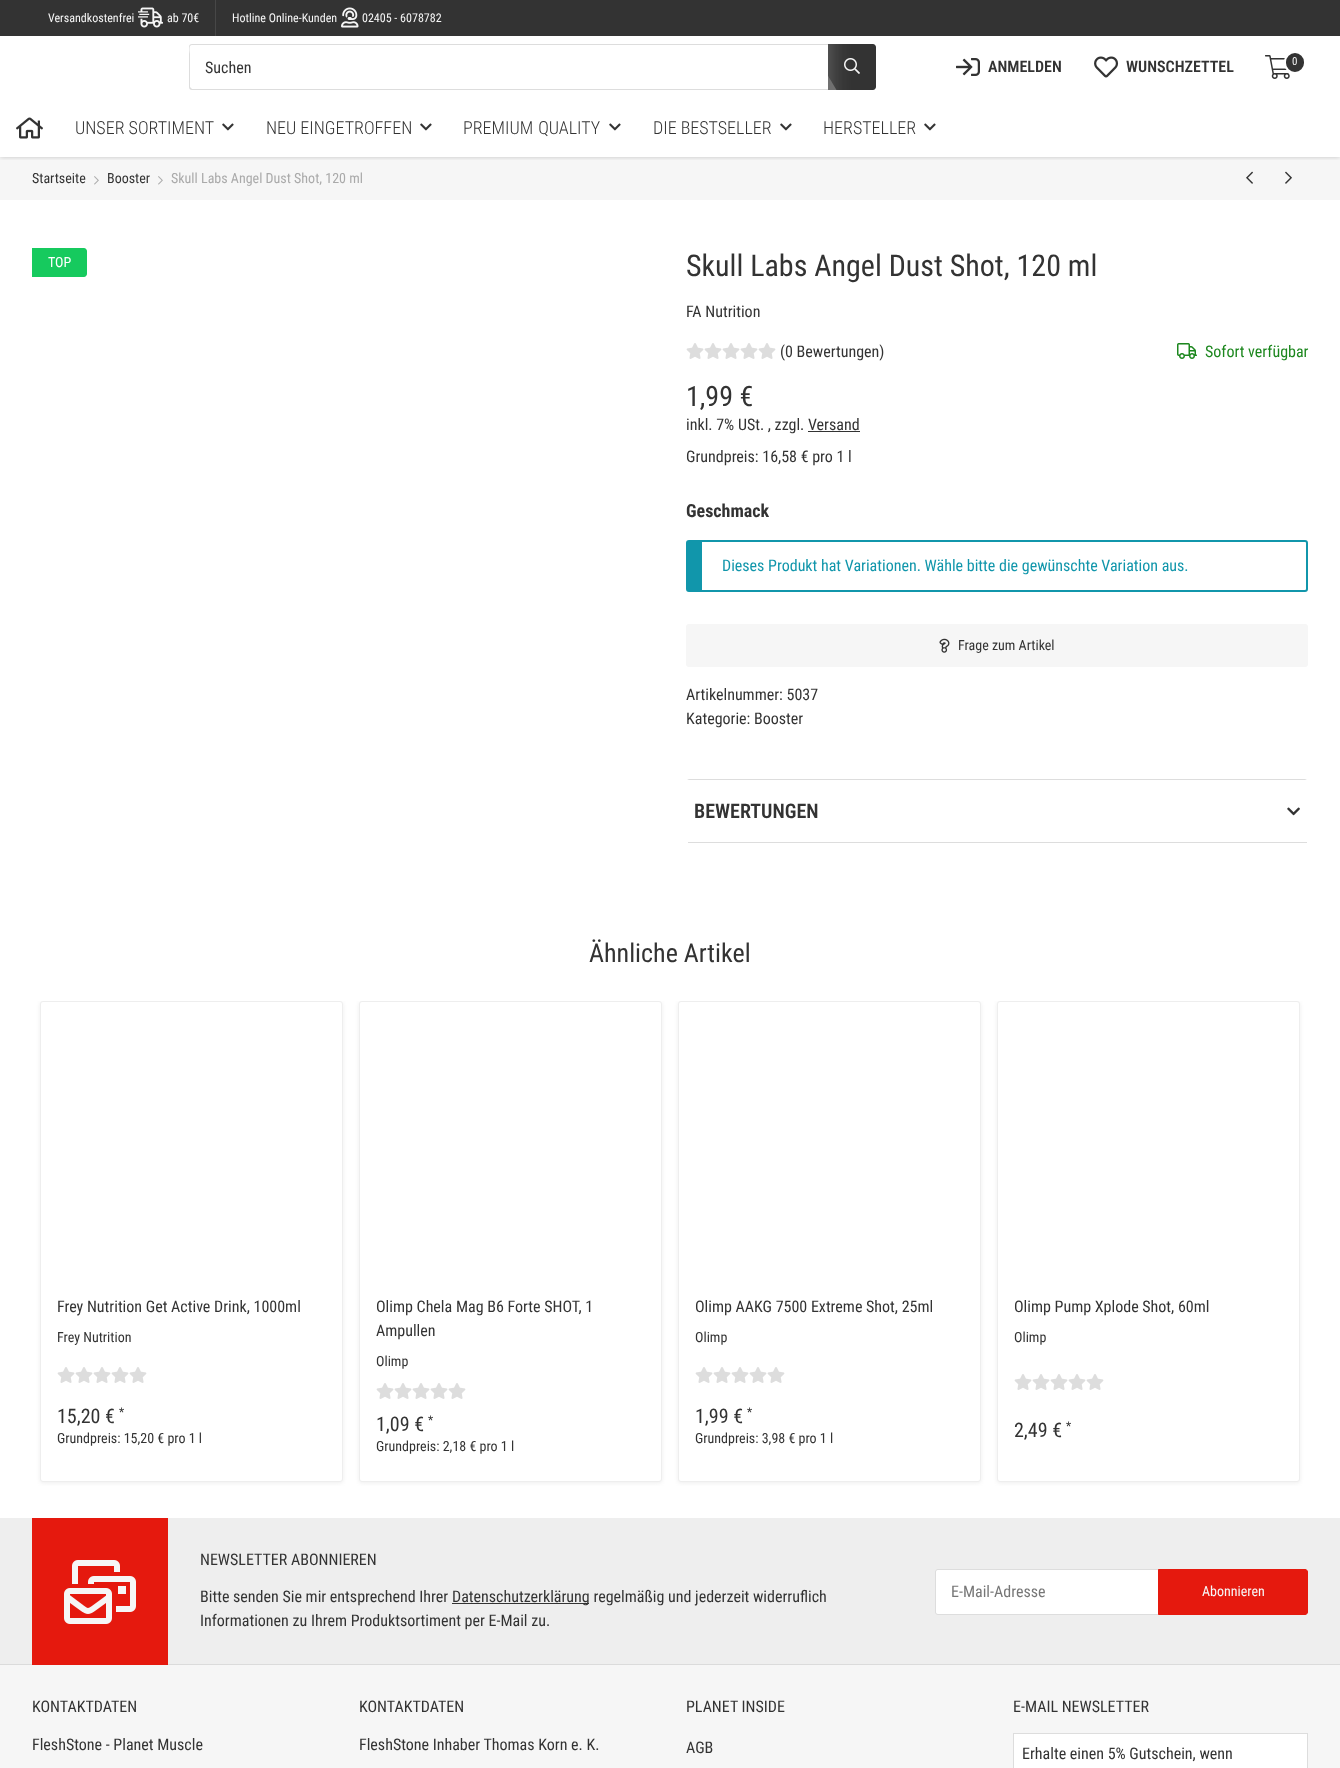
<svg xmlns="http://www.w3.org/2000/svg" width="1340" height="1768">
<defs>
<clipPath id="clip1"><rect x="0" y="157" width="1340" height="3"/></clipPath>
<clipPath id="clip2"><path d="M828 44h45c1.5 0 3 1.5 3 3v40c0 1.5-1.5 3-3 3h-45z"/></clipPath>
<clipPath id="clip3"><path d="M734 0h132v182h-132zm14 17l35-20l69 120l-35 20z" clip-rule="evenodd"/></clipPath>
<clipPath id="clip4"><rect x="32" y="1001" width="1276" height="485"/></clipPath>
</defs>
<rect width="100%" height="100%" fill="#fff"/>
<rect y="157" width="1340" height="43" fill="#f6f6f6"/>
<g clip-path="url(#clip1)">
<rect y="36" width="1340" height="121" fill="#00000033" filter="blur(2.5px)"/>
</g>
<path d="M192 44h637v46h-637c-2 0-3-1-3-3v-40c0-2 1-3 3-3zm0 1h637v44h-637l-2-2v-33c0-1-2-9 2-9z" fill="#ddd" fill-rule="evenodd"/>
<path d="M828 44h45c1.5 0 3 1.5 3 3v40c0 1.5-1.5 3-3 3h-45z" fill="#333"/>
<image x="844" y="58" width="16" height="16" href="media/3.png"/>
<image x="780" y="123" width="12" height="8" href="media/8.png"/>
<g clip-path="url(#clip2)">
<g clip-path="url(#clip3)">
<rect x="780" y="-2" width="40" height="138" fill="#ffffff80" filter="blur(15px)"/>
</g>
</g>
<rect width="1340" height="36" fill="#333"/>
<text x="48" y="22" style="font-family:Roboto Condensed;font-size:12px;fill:#f6f6f6">Versandkostenfrei</text>
<image x="138" y="7" width="25" height="21" href="media/1.png"/>
<text x="167" y="22" style="font-family:Roboto Condensed;font-size:12px;fill:#f6f6f6">ab 70€</text>
<rect x="215" width="1" height="36" fill="#474747"/>
<text x="232" y="22" style="font-family:Roboto Condensed;font-size:12px;fill:#f6f6f6">Hotline Online-Kunden</text>
<image x="341" y="7" width="18" height="21" href="media/2.png"/>
<text x="362" y="22" style="font-family:Roboto Condensed;font-size:12px;fill:#f6f6f6">02405 - 6078782</text>
<text x="205" y="73" style="font-family:Roboto Condensed;font-size:16px;fill:#333">Suchen</text>
<path d="M828 75.5l8.5 14.5h-8.5z" fill="#ffffff4d"/>
<image x="956" y="58" width="24" height="18" href="media/4.png"/>
<text x="988" y="72" style="font-family:Roboto Condensed;font-size:16px;font-weight:600;fill:#333">ANMELDEN</text>
<image x="1094" y="56" width="25" height="22" href="media/5.png"/>
<text x="1126" y="72" style="font-family:Roboto Condensed;font-size:16px;font-weight:600;fill:#333">WUNSCHZETTEL</text>
<image x="1265" y="55" width="25" height="24" href="media/6.png"/>
<rect x="1285" y="52" width="20" height="21" rx="10" fill="#333" stroke="#fff" stroke-width="2"/>
<text x="1292" y="65" style="font-family:Roboto Condensed;font-size:11px;fill:#f6f6f6">0</text>
<image x="16" y="117" width="27" height="22" href="media/7.png"/>
<text x="75" y="134" style="font-family:Roboto Condensed;font-size:18px;font-weight:300;fill:#333">UNSER SORTIMENT</text>
<image x="222" y="123" width="12" height="8" href="media/8.png"/>
<text x="266" y="134" style="font-family:Roboto Condensed;font-size:18px;font-weight:300;fill:#333">NEU EINGETROFFEN</text>
<image x="420" y="123" width="12" height="8" href="media/8.png"/>
<text x="463" y="134" word-spacing="1" style="font-family:Roboto Condensed;font-size:18px;font-weight:300;fill:#333">PREMIUM QUALITY</text>
<image x="609" y="123" width="12" height="8" href="media/8.png"/>
<text x="653" y="134" style="font-family:Roboto Condensed;font-size:18px;font-weight:300;fill:#333">DIE BESTSELLER</text>
<text x="823" y="134" style="font-family:Roboto Condensed;font-size:18px;font-weight:300;fill:#333">HERSTELLER</text>
<image x="924" y="123" width="12" height="8" href="media/8.png"/>
<text x="32" y="183" style="font-family:Roboto Condensed;font-size:14px;fill:#333">Startseite</text>
<image x="94" y="176" width="5" height="9" href="media/9.png"/>
<text x="107" y="183" style="font-family:Roboto Condensed;font-size:14px;fill:#333">Booster</text>
<image x="158" y="176" width="5" height="9" href="media/9.png"/>
<text x="171" y="183" style="font-family:Roboto Condensed;font-size:14px;fill:#aaa">Skull Labs Angel Dust Shot, 120 ml</text>
<image x="1246" y="171" width="7" height="13" href="media/10.png"/>
<image x="1285" y="171" width="7" height="13" href="media/11.png"/>
<path d="M32 248h52c1.5 0 3 1.5 3 3v23c0 1.5-1.5 3-3 3h-52z" fill="#16ca5e"/>
<text x="48" y="267" style="font-family:Roboto Condensed;font-size:14px;fill:#fff">TOP</text>
<text x="686" y="276" style="font-family:Roboto Condensed;font-size:30px;fill:#333">Skull Labs Angel Dust Shot, 120 ml</text>
<text x="686" y="317" style="font-family:Roboto Condensed;font-size:16px;fill:#333">FA Nutrition</text>
<image x="686" y="343" width="18" height="16" href="media/12.png"/>
<image x="704" y="343" width="18" height="16" href="media/12.png"/>
<image x="722" y="343" width="18" height="16" href="media/12.png"/>
<image x="740" y="343" width="18" height="16" href="media/12.png"/>
<image x="758" y="343" width="18" height="16" href="media/12.png"/>
<text x="780" y="357" style="font-family:Roboto Condensed;font-size:16px;fill:#333">(0 Bewertungen)</text>
<image x="1177" y="343" width="20" height="16" href="media/13.png"/>
<text x="1205" y="357" style="font-family:Roboto Condensed;font-size:16px;fill:#1c871e">Sofort verfügbar</text>
<text x="686" y="406" style="font-family:Roboto Condensed;font-size:28px;fill:#333">1,99 €</text>
<text x="686" y="430" style="font-family:Roboto Condensed;font-size:16px;fill:#333">inkl. 7% USt. , zzgl. Versand</text>
<rect x="808" y="431" width="52" height="1" fill="#333"/>
<text x="686" y="462" style="font-family:Roboto Condensed;font-size:16px;fill:#333">Grundpreis: 16,58 € pro 1 l</text>
<text x="686" y="517" style="font-family:Roboto Condensed;font-size:18px;font-weight:bold;fill:#333">Geschmack</text>
<rect x="687" y="541" width="620" height="50" rx="2" fill="none" stroke="#1196ab" stroke-width="2"/>
<rect x="688" y="542" width="14" height="48" fill="#1196ab"/>
<text x="722" y="571" style="font-family:Roboto Condensed;font-size:16px;fill:#1196ab">Dieses Produkt hat Variationen. Wähle bitte die gewünschte Variation aus.</text>
<rect x="686" y="624" width="622" height="43" rx="3" fill="#f6f6f6"/>
<image x="939" y="638" width="11" height="15" href="media/14.png"/>
<text x="958" y="650" style="font-family:Roboto Condensed;font-size:14px;fill:#333">Frage zum Artikel</text>
<text x="686" y="700" style="font-family:Roboto Condensed;font-size:16px;fill:#333">Artikelnummer: 5037</text>
<text x="686" y="724" style="font-family:Roboto Condensed;font-size:16px;fill:#333">Kategorie: Booster</text>
<rect x="688" y="842" width="619" height="1" fill="#ddd"/>
<path d="M689 779h616l2 1h-620z" fill="#ddd"/>
<text x="694" y="818" style="font-family:Roboto Condensed;font-size:20px;font-weight:600;fill:#333">BEWERTUNGEN</text>
<image x="1287" y="807" width="13" height="9" href="media/15.png"/>
<text x="589" y="962" style="font-family:Roboto Condensed;font-size:26px;fill:#333">Ähnliche Artikel</text>
<g clip-path="url(#clip4)">
<rect x="40" y="1002" width="303" height="481" rx="3" fill="#eee" filter="blur(2px)"/>
</g>
<rect x="40.5" y="1001.5" width="302" height="480" rx="2.5" fill="#fff" stroke="#eee"/>
<text x="57" y="1312" style="font-family:Roboto Condensed;font-size:16px;fill:#333">Frey Nutrition Get Active Drink, 1000ml</text>
<text x="57" y="1342" style="font-family:Roboto Condensed;font-size:14px;fill:#333">Frey Nutrition</text>
<image x="57" y="1367" width="18" height="16" href="media/12.png"/>
<image x="75" y="1367" width="18" height="16" href="media/12.png"/>
<image x="93" y="1367" width="18" height="16" href="media/12.png"/>
<image x="111" y="1367" width="18" height="16" href="media/12.png"/>
<image x="129" y="1367" width="18" height="16" href="media/12.png"/>
<text x="57" y="1423" style="font-family:Roboto Condensed;font-size:20px;fill:#333">15,20 €</text>
<text x="119" y="1416" style="font-family:Roboto Condensed;font-size:12px;fill:#333">*</text>
<text x="57" y="1443" style="font-family:Roboto Condensed;font-size:14px;fill:#333">Grundpreis: 15,20 € pro 1 l</text>
<g clip-path="url(#clip4)">
<rect x="359" y="1002" width="303" height="481" rx="3" fill="#eee" filter="blur(2px)"/>
</g>
<rect x="359.5" y="1001.5" width="302" height="480" rx="2.5" fill="#fff" stroke="#eee"/>
<text x="376" y="1312" style="font-family:Roboto Condensed;font-size:16px;fill:#333">Olimp Chela Mag B6 Forte SHOT, 1</text>
<text x="376" y="1336" style="font-family:Roboto Condensed;font-size:16px;fill:#333">Ampullen</text>
<text x="376" y="1366" style="font-family:Roboto Condensed;font-size:14px;fill:#333">Olimp</text>
<image x="376" y="1383" width="18" height="16" href="media/12.png"/>
<image x="394" y="1383" width="18" height="16" href="media/12.png"/>
<image x="412" y="1383" width="18" height="16" href="media/12.png"/>
<image x="430" y="1383" width="18" height="16" href="media/12.png"/>
<image x="448" y="1383" width="18" height="16" href="media/12.png"/>
<text x="376" y="1431" style="font-family:Roboto Condensed;font-size:20px;fill:#333">1,09 €</text>
<text x="428" y="1424" style="font-family:Roboto Condensed;font-size:12px;fill:#333">*</text>
<text x="376" y="1451" style="font-family:Roboto Condensed;font-size:14px;fill:#333">Grundpreis: 2,18 € pro 1 l</text>
<g clip-path="url(#clip4)">
<rect x="678" y="1002" width="303" height="481" rx="3" fill="#eee" filter="blur(2px)"/>
</g>
<rect x="678.5" y="1001.5" width="302" height="480" rx="2.5" fill="#fff" stroke="#eee"/>
<text x="695" y="1312" style="font-family:Roboto Condensed;font-size:16px;fill:#333">Olimp AAKG 7500 Extreme Shot, 25ml</text>
<text x="695" y="1342" style="font-family:Roboto Condensed;font-size:14px;fill:#333">Olimp</text>
<image x="695" y="1367" width="18" height="16" href="media/12.png"/>
<image x="713" y="1367" width="18" height="16" href="media/12.png"/>
<image x="731" y="1367" width="18" height="16" href="media/12.png"/>
<image x="749" y="1367" width="18" height="16" href="media/12.png"/>
<image x="767" y="1367" width="18" height="16" href="media/12.png"/>
<text x="695" y="1423" style="font-family:Roboto Condensed;font-size:20px;fill:#333">1,99 €</text>
<text x="747" y="1416" style="font-family:Roboto Condensed;font-size:12px;fill:#333">*</text>
<text x="695" y="1443" style="font-family:Roboto Condensed;font-size:14px;fill:#333">Grundpreis: 3,98 € pro 1 l</text>
<g clip-path="url(#clip4)">
<rect x="997" y="1002" width="303" height="481" rx="3" fill="#eee" filter="blur(2px)"/>
</g>
<rect x="997.5" y="1001.5" width="302" height="480" rx="2.5" fill="#fff" stroke="#eee"/>
<text x="1014" y="1312" style="font-family:Roboto Condensed;font-size:16px;fill:#333">Olimp Pump Xplode Shot, 60ml</text>
<text x="1014" y="1342" style="font-family:Roboto Condensed;font-size:14px;fill:#333">Olimp</text>
<image x="1014" y="1374" width="18" height="16" href="media/12.png"/>
<image x="1032" y="1374" width="18" height="16" href="media/12.png"/>
<image x="1050" y="1374" width="18" height="16" href="media/12.png"/>
<image x="1068" y="1374" width="18" height="16" href="media/12.png"/>
<image x="1086" y="1374" width="18" height="16" href="media/12.png"/>
<text x="1014" y="1437" style="font-family:Roboto Condensed;font-size:20px;fill:#333">2,49 €</text>
<text x="1066" y="1430" style="font-family:Roboto Condensed;font-size:12px;fill:#333">*</text>
<rect y="1665" width="1340" height="103" fill="#f6f6f6"/>
<rect y="1518" width="1340" height="146" fill="#eee"/>
<rect y="1664" width="1340" height="1" fill="#dbdbdb"/>
<rect x="32" y="1518" width="136" height="147" fill="#e5190e"/>
<image x="64" y="1560" width="72" height="64" href="media/16.png"/>
<text x="200" y="1565" style="font-family:Roboto Condensed;font-size:16px;fill:#333">NEWSLETTER ABONNIEREN</text>
<text x="200" y="1602" style="font-family:Roboto Condensed;font-size:16px;fill:#333">Bitte senden Sie mir entsprechend Ihrer</text>
<rect x="452" y="1603" width="137" height="1" fill="#333"/>
<text x="452" y="1602" style="font-family:Roboto Condensed;font-size:16px;fill:#333">Datenschutzerklärung regelmäßig und jederzeit widerruflich</text>
<text x="200" y="1626" style="font-family:Roboto Condensed;font-size:16px;fill:#333">Informationen zu Ihrem Produktsortiment per E-Mail zu.</text>
<path d="M938 1569.5h220.5v45h-220.5c-1.5 0-2.5-1-2.5-2.5v-40c0-1.5 1-2.5 2.5-2.5z" fill="#fff" stroke="#ddd"/>
<text x="951" y="1597" style="font-family:Roboto Condensed;font-size:16px;fill:#777">E-Mail-Adresse</text>
<path d="M1158.5 1569.5h146.5c1.5 0 2.5 1 2.5 2.5v40c0 1.5-1 2.5-2.5 2.5h-146.5z" fill="#e5190e" stroke="#e5190e"/>
<text x="1202" y="1596" style="font-family:Roboto Condensed;font-size:14px;fill:#f6f6f6">Abonnieren</text>
<text x="32" y="1712" style="font-family:Roboto Condensed;font-size:16px;fill:#333">KONTAKTDATEN</text>
<text x="32" y="1750" style="font-family:Roboto Condensed;font-size:16px;fill:#333">FleshStone - Planet Muscle</text>
<text x="359" y="1712" style="font-family:Roboto Condensed;font-size:16px;fill:#333">KONTAKTDATEN</text>
<text x="359" y="1750" style="font-family:Roboto Condensed;font-size:16px;fill:#333">FleshStone Inhaber Thomas Korn e. K.</text>
<text x="686" y="1712" style="font-family:Roboto Condensed;font-size:16px;fill:#333">PLANET INSIDE</text>
<text x="686" y="1753" style="font-family:Roboto Condensed;font-size:16px;fill:#333">AGB</text>
<text x="1013" y="1712" style="font-family:Roboto Condensed;font-size:16px;fill:#333">E-MAIL NEWSLETTER</text>
<rect x="1013.5" y="1733.5" width="294" height="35" fill="#fff" stroke="#ddd"/>
<text x="1022" y="1759" style="font-family:Roboto Condensed;font-size:16px;fill:#333">Erhalte einen 5% Gutschein, wenn</text>
</svg>
